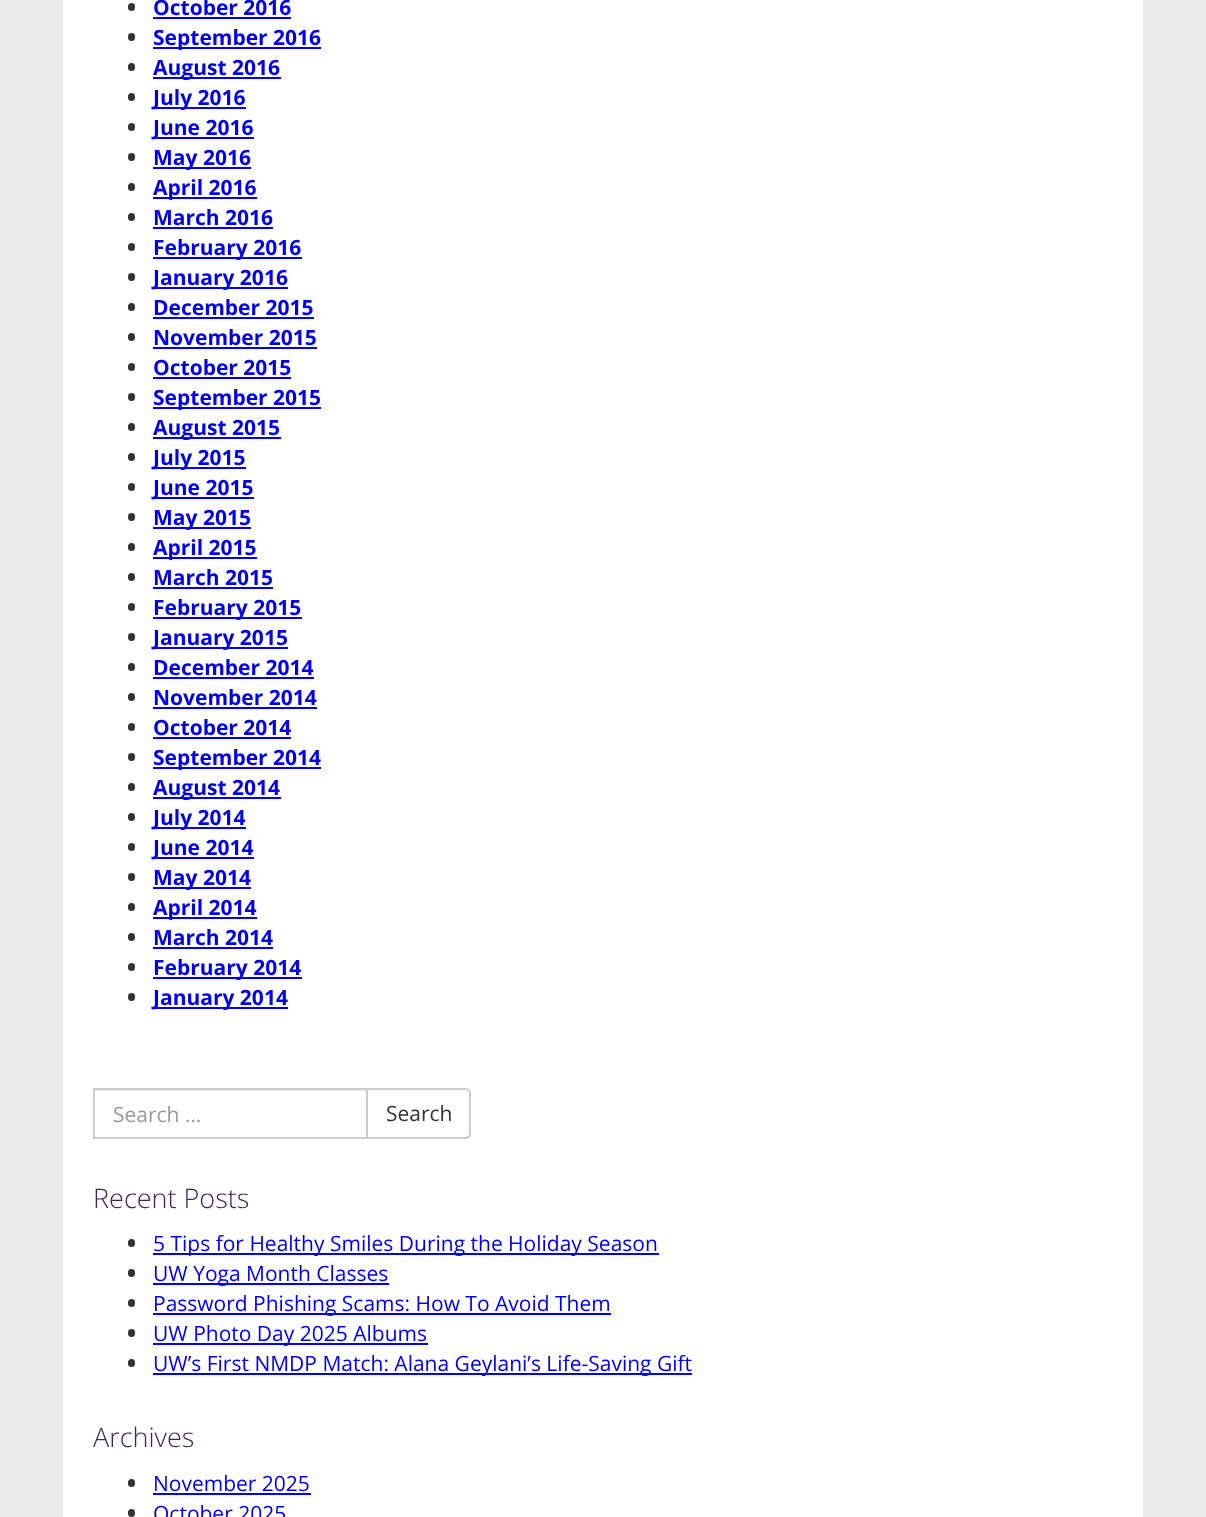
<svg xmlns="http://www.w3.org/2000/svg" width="1206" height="1517">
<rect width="100%" height="100%" fill="#eaeaea"/>
<rect x="63" width="1080" height="1517" fill="#fff"/>
<rect x="128" y="3" width="7" height="8" rx="3.5" fill="#333"/>
<text x="153" y="15" style="font-family:Open Sans;font-size:21px;font-weight:bold;fill:#00e">October 2016</text>
<rect x="153" y="17" width="138" height="2" fill="#00e"/>
<rect x="128" y="33" width="7" height="8" rx="3.5" fill="#333"/>
<rect x="153" y="47" width="168" height="2" fill="#00e"/>
<text x="153" y="45" style="font-family:Open Sans;font-size:21px;font-weight:bold;fill:#00e">September 2016</text>
<rect x="128" y="63" width="7" height="8" rx="3.5" fill="#333"/>
<rect x="153" y="77" width="128" height="2" fill="#00e"/>
<text x="153" y="75" style="font-family:Open Sans;font-size:21px;font-weight:bold;fill:#00e">August 2016</text>
<rect x="128" y="93" width="7" height="8" rx="3.5" fill="#333"/>
<rect x="153" y="107" width="93" height="2" fill="#00e"/>
<text x="153" y="105" style="font-family:Open Sans;font-size:21px;font-weight:bold;fill:#00e">July 2016</text>
<rect x="128" y="123" width="7" height="8" rx="3.5" fill="#333"/>
<rect x="153" y="137" width="101" height="2" fill="#00e"/>
<text x="153" y="135" style="font-family:Open Sans;font-size:21px;font-weight:bold;fill:#00e">June 2016</text>
<rect x="128" y="153" width="7" height="8" rx="3.5" fill="#333"/>
<rect x="153" y="167" width="98" height="2" fill="#00e"/>
<text x="153" y="165" style="font-family:Open Sans;font-size:21px;font-weight:bold;fill:#00e">May 2016</text>
<rect x="128" y="183" width="7" height="8" rx="3.5" fill="#333"/>
<rect x="153" y="197" width="104" height="2" fill="#00e"/>
<text x="153" y="195" style="font-family:Open Sans;font-size:21px;font-weight:bold;fill:#00e">April 2016</text>
<rect x="128" y="213" width="7" height="8" rx="3.5" fill="#333"/>
<text x="153" y="225" style="font-family:Open Sans;font-size:21px;font-weight:bold;fill:#00e">March 2016</text>
<rect x="153" y="227" width="120" height="2" fill="#00e"/>
<rect x="128" y="243" width="7" height="8" rx="3.5" fill="#333"/>
<rect x="153" y="257" width="149" height="2" fill="#00e"/>
<text x="153" y="255" style="font-family:Open Sans;font-size:21px;font-weight:bold;fill:#00e">February 2016</text>
<rect x="128" y="273" width="7" height="8" rx="3.5" fill="#333"/>
<rect x="153" y="287" width="135" height="2" fill="#00e"/>
<text x="153" y="285" style="font-family:Open Sans;font-size:21px;font-weight:bold;fill:#00e">January 2016</text>
<rect x="128" y="303" width="7" height="8" rx="3.5" fill="#333"/>
<text x="153" y="315" style="font-family:Open Sans;font-size:21px;font-weight:bold;fill:#00e">December 2015</text>
<rect x="153" y="317" width="161" height="2" fill="#00e"/>
<rect x="128" y="333" width="7" height="8" rx="3.5" fill="#333"/>
<text x="153" y="345" style="font-family:Open Sans;font-size:21px;font-weight:bold;fill:#00e">November 2015</text>
<rect x="153" y="347" width="164" height="2" fill="#00e"/>
<rect x="128" y="363" width="7" height="8" rx="3.5" fill="#333"/>
<text x="153" y="375" style="font-family:Open Sans;font-size:21px;font-weight:bold;fill:#00e">October 2015</text>
<rect x="153" y="377" width="138" height="2" fill="#00e"/>
<rect x="128" y="393" width="7" height="8" rx="3.5" fill="#333"/>
<rect x="153" y="407" width="168" height="2" fill="#00e"/>
<text x="153" y="405" style="font-family:Open Sans;font-size:21px;font-weight:bold;fill:#00e">September 2015</text>
<rect x="128" y="423" width="7" height="8" rx="3.5" fill="#333"/>
<rect x="153" y="437" width="128" height="2" fill="#00e"/>
<text x="153" y="435" style="font-family:Open Sans;font-size:21px;font-weight:bold;fill:#00e">August 2015</text>
<rect x="128" y="453" width="7" height="8" rx="3.5" fill="#333"/>
<rect x="153" y="467" width="93" height="2" fill="#00e"/>
<text x="153" y="465" style="font-family:Open Sans;font-size:21px;font-weight:bold;fill:#00e">July 2015</text>
<rect x="128" y="483" width="7" height="8" rx="3.5" fill="#333"/>
<rect x="153" y="497" width="101" height="2" fill="#00e"/>
<text x="153" y="495" style="font-family:Open Sans;font-size:21px;font-weight:bold;fill:#00e">June 2015</text>
<rect x="128" y="513" width="7" height="8" rx="3.5" fill="#333"/>
<rect x="153" y="527" width="98" height="2" fill="#00e"/>
<text x="153" y="525" style="font-family:Open Sans;font-size:21px;font-weight:bold;fill:#00e">May 2015</text>
<rect x="128" y="543" width="7" height="8" rx="3.5" fill="#333"/>
<rect x="153" y="557" width="104" height="2" fill="#00e"/>
<text x="153" y="555" style="font-family:Open Sans;font-size:21px;font-weight:bold;fill:#00e">April 2015</text>
<rect x="128" y="573" width="7" height="8" rx="3.5" fill="#333"/>
<text x="153" y="585" style="font-family:Open Sans;font-size:21px;font-weight:bold;fill:#00e">March 2015</text>
<rect x="153" y="587" width="120" height="2" fill="#00e"/>
<rect x="128" y="603" width="7" height="8" rx="3.5" fill="#333"/>
<rect x="153" y="617" width="149" height="2" fill="#00e"/>
<text x="153" y="615" style="font-family:Open Sans;font-size:21px;font-weight:bold;fill:#00e">February 2015</text>
<rect x="128" y="633" width="7" height="8" rx="3.5" fill="#333"/>
<rect x="153" y="647" width="135" height="2" fill="#00e"/>
<text x="153" y="645" style="font-family:Open Sans;font-size:21px;font-weight:bold;fill:#00e">January 2015</text>
<rect x="128" y="663" width="7" height="8" rx="3.5" fill="#333"/>
<text x="153" y="675" style="font-family:Open Sans;font-size:21px;font-weight:bold;fill:#00e">December 2014</text>
<rect x="153" y="677" width="161" height="2" fill="#00e"/>
<rect x="128" y="693" width="7" height="8" rx="3.5" fill="#333"/>
<text x="153" y="705" style="font-family:Open Sans;font-size:21px;font-weight:bold;fill:#00e">November 2014</text>
<rect x="153" y="707" width="164" height="2" fill="#00e"/>
<rect x="128" y="723" width="7" height="8" rx="3.5" fill="#333"/>
<text x="153" y="735" style="font-family:Open Sans;font-size:21px;font-weight:bold;fill:#00e">October 2014</text>
<rect x="153" y="737" width="138" height="2" fill="#00e"/>
<rect x="128" y="753" width="7" height="8" rx="3.5" fill="#333"/>
<rect x="153" y="767" width="168" height="2" fill="#00e"/>
<text x="153" y="765" style="font-family:Open Sans;font-size:21px;font-weight:bold;fill:#00e">September 2014</text>
<rect x="128" y="783" width="7" height="8" rx="3.5" fill="#333"/>
<rect x="153" y="797" width="128" height="2" fill="#00e"/>
<text x="153" y="795" style="font-family:Open Sans;font-size:21px;font-weight:bold;fill:#00e">August 2014</text>
<rect x="128" y="813" width="7" height="8" rx="3.5" fill="#333"/>
<rect x="153" y="827" width="93" height="2" fill="#00e"/>
<text x="153" y="825" style="font-family:Open Sans;font-size:21px;font-weight:bold;fill:#00e">July 2014</text>
<rect x="128" y="843" width="7" height="8" rx="3.5" fill="#333"/>
<rect x="153" y="857" width="101" height="2" fill="#00e"/>
<text x="153" y="855" style="font-family:Open Sans;font-size:21px;font-weight:bold;fill:#00e">June 2014</text>
<rect x="128" y="873" width="7" height="8" rx="3.5" fill="#333"/>
<rect x="153" y="887" width="98" height="2" fill="#00e"/>
<text x="153" y="885" style="font-family:Open Sans;font-size:21px;font-weight:bold;fill:#00e">May 2014</text>
<rect x="128" y="903" width="7" height="8" rx="3.5" fill="#333"/>
<rect x="153" y="917" width="104" height="2" fill="#00e"/>
<text x="153" y="915" style="font-family:Open Sans;font-size:21px;font-weight:bold;fill:#00e">April 2014</text>
<rect x="128" y="933" width="7" height="8" rx="3.5" fill="#333"/>
<text x="153" y="945" style="font-family:Open Sans;font-size:21px;font-weight:bold;fill:#00e">March 2014</text>
<rect x="153" y="947" width="120" height="2" fill="#00e"/>
<rect x="128" y="963" width="7" height="8" rx="3.5" fill="#333"/>
<rect x="153" y="977" width="149" height="2" fill="#00e"/>
<text x="153" y="975" style="font-family:Open Sans;font-size:21px;font-weight:bold;fill:#00e">February 2014</text>
<rect x="128" y="993" width="7" height="8" rx="3.5" fill="#333"/>
<rect x="153" y="1007" width="135" height="2" fill="#00e"/>
<text x="153" y="1005" style="font-family:Open Sans;font-size:21px;font-weight:bold;fill:#00e">January 2014</text>
<rect x="95" y="1090" width="271" height="1" fill="#ececec"/>
<path d="M367 1089h98c3 0 5 2 5 5v39c0 3-2 5-5 5h-98z" fill="none" stroke="#ccc" stroke-width="2"/>
<rect x="94" y="1089" width="273" height="49" fill="none" stroke="#ccc" stroke-width="2"/>
<text x="113" y="1122" style="font-family:Open Sans;font-size:21px;fill:#999">Search …</text>
<text x="386" y="1121" style="font-family:Open Sans;font-size:21px;fill:#333">Search</text>
<text x="93" y="1208" style="font-family:Open Sans;font-size:27px;font-weight:300;fill:#39275b">Recent Posts</text>
<rect x="128" y="1239" width="7" height="8" rx="3.5" fill="#333"/>
<rect x="153" y="1253" width="506" height="2" fill="#00e"/>
<text x="153" y="1251" style="font-family:Open Sans;font-size:21px;fill:#00e">5 Tips for Healthy Smiles During the Holiday Season</text>
<rect x="128" y="1269" width="7" height="8" rx="3.5" fill="#333"/>
<rect x="153" y="1283" width="236" height="2" fill="#00e"/>
<text x="153" y="1281" style="font-family:Open Sans;font-size:21px;fill:#00e">UW Yoga Month Classes</text>
<rect x="128" y="1299" width="7" height="8" rx="3.5" fill="#333"/>
<rect x="153" y="1313" width="458" height="2" fill="#00e"/>
<text x="153" y="1311" style="font-family:Open Sans;font-size:21px;fill:#00e">Password Phishing Scams: How To Avoid Them</text>
<rect x="128" y="1329" width="7" height="8" rx="3.5" fill="#333"/>
<rect x="153" y="1343" width="275" height="2" fill="#00e"/>
<text x="153" y="1341" style="font-family:Open Sans;font-size:21px;fill:#00e">UW Photo Day 2025 Albums</text>
<rect x="128" y="1359" width="7" height="8" rx="3.5" fill="#333"/>
<rect x="153" y="1373" width="539" height="2" fill="#00e"/>
<text x="153" y="1371" style="font-family:Open Sans;font-size:21px;fill:#00e">UW’s First NMDP Match: Alana Geylani’s Life-Saving Gift</text>
<text x="93" y="1447" style="font-family:Open Sans;font-size:27px;font-weight:300;fill:#39275b">Archives</text>
<rect x="128" y="1479" width="7" height="8" rx="3.5" fill="#333"/>
<text x="153" y="1491" style="font-family:Open Sans;font-size:21px;fill:#00e">November 2025</text>
<rect x="153" y="1493" width="158" height="2" fill="#00e"/>
<rect x="128" y="1509" width="7" height="8" rx="3.5" fill="#333"/>
<text x="153" y="1521" style="font-family:Open Sans;font-size:21px;fill:#00e">October 2025</text>
</svg>
